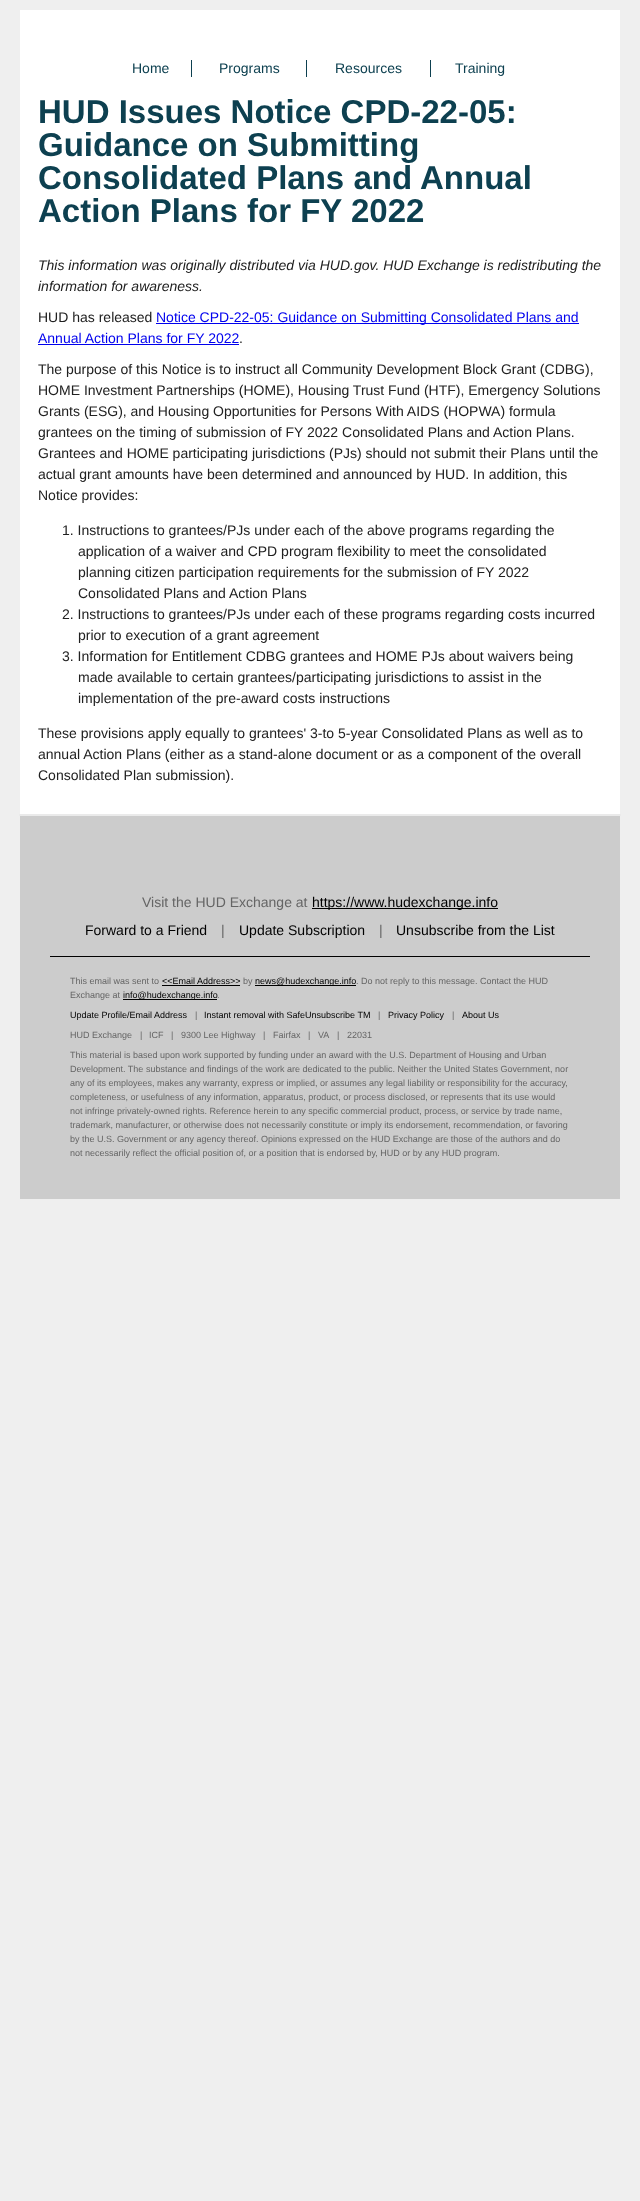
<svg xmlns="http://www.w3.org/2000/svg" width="640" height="2201">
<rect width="100%" height="100%" fill="#efefef"/>
<rect x="20" y="10" width="600" height="804" fill="#fff"/>
<rect x="191" y="60" width="1" height="17" fill="#0d4050"/>
<text x="132" y="73" style="font-family:Liberation Sans;font-size:14px;fill:#0d4050">Home</text>
<rect x="306" y="60" width="1" height="17" fill="#0d4050"/>
<text x="219" y="73" style="font-family:Liberation Sans;font-size:14px;fill:#0d4050">Programs</text>
<rect x="430" y="60" width="1" height="17" fill="#0d4050"/>
<text x="335" y="73" style="font-family:Liberation Sans;font-size:14px;fill:#0d4050">Resources</text>
<text x="455" y="73" style="font-family:Liberation Sans;font-size:14px;fill:#0d4050">Training</text>
<text x="38" y="123" style="font-family:Liberation Sans;font-size:33px;font-weight:bold;fill:#0d4050">HUD Issues Notice CPD-22-05:</text>
<text x="38" y="156" style="font-family:Liberation Sans;font-size:33px;font-weight:bold;fill:#0d4050">Guidance on Submitting</text>
<text x="38" y="189" style="font-family:Liberation Sans;font-size:33px;font-weight:bold;fill:#0d4050">Consolidated Plans and Annual</text>
<text x="38" y="222" style="font-family:Liberation Sans;font-size:33px;font-weight:bold;fill:#0d4050">Action Plans for FY 2022</text>
<rect x="19" y="814" width="602" height="2" fill="#eaeaea"/>
<text x="38" y="270" style="font-family:Liberation Sans;font-size:14px;font-style:italic;fill:#202020">This information was originally distributed via HUD.gov. HUD Exchange is redistributing the</text>
<text x="38" y="291" style="font-family:Liberation Sans;font-size:14px;font-style:italic;fill:#202020">information for awareness.</text>
<text x="38" y="322" style="font-family:Liberation Sans;font-size:14px;fill:#202020">HUD has released</text>
<rect x="156" y="323" width="423" height="1" fill="#00e"/>
<text x="156" y="322" style="font-family:Liberation Sans;font-size:14px;fill:#00e">Notice CPD-22-05: Guidance on Submitting Consolidated Plans and</text>
<text x="38" y="343" style="font-family:Liberation Sans;font-size:14px;fill:#00e">Annual Action Plans for FY 2022</text>
<rect x="38" y="344" width="201" height="1" fill="#00e"/>
<text x="239" y="343" style="font-family:Liberation Sans;font-size:14px;fill:#202020">.</text>
<text x="38" y="374" style="font-family:Liberation Sans;font-size:14px;fill:#202020">The purpose of this Notice is to instruct all Community Development Block Grant (CDBG),</text>
<text x="38" y="395" style="font-family:Liberation Sans;font-size:14px;fill:#202020">HOME Investment Partnerships (HOME), Housing Trust Fund (HTF), Emergency Solutions</text>
<text x="38" y="416" style="font-family:Liberation Sans;font-size:14px;fill:#202020">Grants (ESG), and Housing Opportunities for Persons With AIDS (HOPWA) formula</text>
<text x="38" y="437" style="font-family:Liberation Sans;font-size:14px;fill:#202020">grantees on the timing of submission of FY 2022 Consolidated Plans and Action Plans.</text>
<text x="38" y="458" style="font-family:Liberation Sans;font-size:14px;fill:#202020">Grantees and HOME participating jurisdictions (PJs) should not submit their Plans until the</text>
<text x="38" y="479" style="font-family:Liberation Sans;font-size:14px;fill:#202020">actual grant amounts have been determined and announced by HUD. In addition, this</text>
<text x="38" y="500" style="font-family:Liberation Sans;font-size:14px;fill:#202020">Notice provides:</text>
<text x="62" y="535" style="font-family:Liberation Sans;font-size:14px;fill:#202020">1. Instructions to grantees/PJs under each of the above programs regarding the</text>
<text x="78" y="556" style="font-family:Liberation Sans;font-size:14px;fill:#202020">application of a waiver and CPD program flexibility to meet the consolidated</text>
<text x="78" y="577" style="font-family:Liberation Sans;font-size:14px;fill:#202020">planning citizen participation requirements for the submission of FY 2022</text>
<text x="78" y="598" style="font-family:Liberation Sans;font-size:14px;fill:#202020">Consolidated Plans and Action Plans</text>
<text x="62" y="619" style="font-family:Liberation Sans;font-size:14px;fill:#202020">2. Instructions to grantees/PJs under each of these programs regarding costs incurred</text>
<text x="78" y="640" style="font-family:Liberation Sans;font-size:14px;fill:#202020">prior to execution of a grant agreement</text>
<text x="62" y="661" style="font-family:Liberation Sans;font-size:14px;fill:#202020">3. Information for Entitlement CDBG grantees and HOME PJs about waivers being</text>
<text x="78" y="682" style="font-family:Liberation Sans;font-size:14px;fill:#202020">made available to certain grantees/participating jurisdictions to assist in the</text>
<text x="78" y="703" style="font-family:Liberation Sans;font-size:14px;fill:#202020">implementation of the pre-award costs instructions</text>
<text x="38" y="738" style="font-family:Liberation Sans;font-size:14px;fill:#202020">These provisions apply equally to grantees' 3-to 5-year Consolidated Plans as well as to</text>
<text x="38" y="759" style="font-family:Liberation Sans;font-size:14px;fill:#202020">annual Action Plans (either as a stand-alone document or as a component of the overall</text>
<text x="38" y="780" style="font-family:Liberation Sans;font-size:14px;fill:#202020">Consolidated Plan submission).</text>
<rect x="20" y="816" width="600" height="383" fill="#ccc"/>
<text x="142" y="907" style="font-family:Liberation Sans;font-size:14px;fill:#656565">Visit the HUD Exchange at</text>
<rect x="312" y="908" width="186" height="1" fill="#000"/>
<text x="312" y="907" style="font-family:Liberation Sans;font-size:14px;fill:#000">https://www.hudexchange.info</text>
<text x="85" y="935" style="font-family:Liberation Sans;font-size:14px;fill:#000">Forward to a Friend</text>
<text x="221" y="935" style="font-family:Liberation Sans;font-size:14px;fill:#656565">|</text>
<text x="239" y="935" style="font-family:Liberation Sans;font-size:14px;fill:#000">Update Subscription</text>
<text x="379" y="935" style="font-family:Liberation Sans;font-size:14px;fill:#656565">|</text>
<text x="396" y="935" style="font-family:Liberation Sans;font-size:14px;fill:#000">Unsubscribe from the List</text>
<rect x="50" y="956" width="540" height="1" fill="#000"/>
<text x="70" y="984" style="font-family:Liberation Sans;font-size:9px;fill:#656565">This email was sent to</text>
<text x="162" y="984" style="font-family:Liberation Sans;font-size:9px;fill:#000">&lt;&lt;Email Address&gt;&gt;</text>
<rect x="162" y="985" width="78" height="1" fill="#000"/>
<text x="243" y="984" style="font-family:Liberation Sans;font-size:9px;fill:#656565">by</text>
<rect x="255" y="985" width="101" height="1" fill="#000"/>
<text x="255" y="984" style="font-family:Liberation Sans;font-size:9px;fill:#000">news@hudexchange.info</text>
<text x="356" y="984" style="font-family:Liberation Sans;font-size:9px;fill:#656565">. Do not reply to this message. Contact the HUD</text>
<text x="70" y="998" style="font-family:Liberation Sans;font-size:9px;fill:#656565">Exchange at</text>
<rect x="123" y="999" width="94" height="1" fill="#000"/>
<text x="123" y="998" style="font-family:Liberation Sans;font-size:9px;fill:#000">info@hudexchange.info</text>
<text x="217" y="998" style="font-family:Liberation Sans;font-size:9px;fill:#656565">.</text>
<text x="70" y="1018" style="font-family:Liberation Sans;font-size:9px;fill:#000">Update Profile/Email Address</text>
<text x="195" y="1018" style="font-family:Liberation Sans;font-size:9px;fill:#656565">|</text>
<text x="204" y="1018" style="font-family:Liberation Sans;font-size:9px;fill:#000">Instant removal with SafeUnsubscribe TM</text>
<text x="378" y="1018" style="font-family:Liberation Sans;font-size:9px;fill:#656565">|</text>
<text x="388" y="1018" style="font-family:Liberation Sans;font-size:9px;fill:#000">Privacy Policy</text>
<text x="452" y="1018" style="font-family:Liberation Sans;font-size:9px;fill:#656565">|</text>
<text x="462" y="1018" style="font-family:Liberation Sans;font-size:9px;fill:#000">About Us</text>
<text x="70" y="1038" style="font-family:Liberation Sans;font-size:9px;fill:#656565">HUD Exchange</text>
<text x="140" y="1038" style="font-family:Liberation Sans;font-size:9px;fill:#656565">|</text>
<text x="149" y="1038" style="font-family:Liberation Sans;font-size:9px;fill:#656565">ICF</text>
<text x="171" y="1038" style="font-family:Liberation Sans;font-size:9px;fill:#656565">|</text>
<text x="181" y="1038" style="font-family:Liberation Sans;font-size:9px;fill:#656565">9300 Lee Highway</text>
<text x="263" y="1038" style="font-family:Liberation Sans;font-size:9px;fill:#656565">|</text>
<text x="273" y="1038" style="font-family:Liberation Sans;font-size:9px;fill:#656565">Fairfax</text>
<text x="308" y="1038" style="font-family:Liberation Sans;font-size:9px;fill:#656565">|</text>
<text x="318" y="1038" style="font-family:Liberation Sans;font-size:9px;fill:#656565">VA</text>
<text x="337" y="1038" style="font-family:Liberation Sans;font-size:9px;fill:#656565">|</text>
<text x="347" y="1038" style="font-family:Liberation Sans;font-size:9px;fill:#656565">22031</text>
<text x="70" y="1058" style="font-family:Liberation Sans;font-size:9px;fill:#656565">This material is based upon work supported by funding under an award with the U.S. Department of Housing and Urban</text>
<text x="70" y="1072" style="font-family:Liberation Sans;font-size:9px;fill:#656565">Development. The substance and findings of the work are dedicated to the public. Neither the United States Government, nor</text>
<text x="70" y="1086" style="font-family:Liberation Sans;font-size:9px;fill:#656565">any of its employees, makes any warranty, express or implied, or assumes any legal liability or responsibility for the accuracy,</text>
<text x="70" y="1100" style="font-family:Liberation Sans;font-size:9px;fill:#656565">completeness, or usefulness of any information, apparatus, product, or process disclosed, or represents that its use would</text>
<text x="70" y="1114" style="font-family:Liberation Sans;font-size:9px;fill:#656565">not infringe privately-owned rights. Reference herein to any specific commercial product, process, or service by trade name,</text>
<text x="70" y="1128" style="font-family:Liberation Sans;font-size:9px;fill:#656565">trademark, manufacturer, or otherwise does not necessarily constitute or imply its endorsement, recommendation, or favoring</text>
<text x="70" y="1142" style="font-family:Liberation Sans;font-size:9px;fill:#656565">by the U.S. Government or any agency thereof. Opinions expressed on the HUD Exchange are those of the authors and do</text>
<text x="70" y="1156" style="font-family:Liberation Sans;font-size:9px;fill:#656565">not necessarily reflect the official position of, or a position that is endorsed by, HUD or by any HUD program.</text>
</svg>
